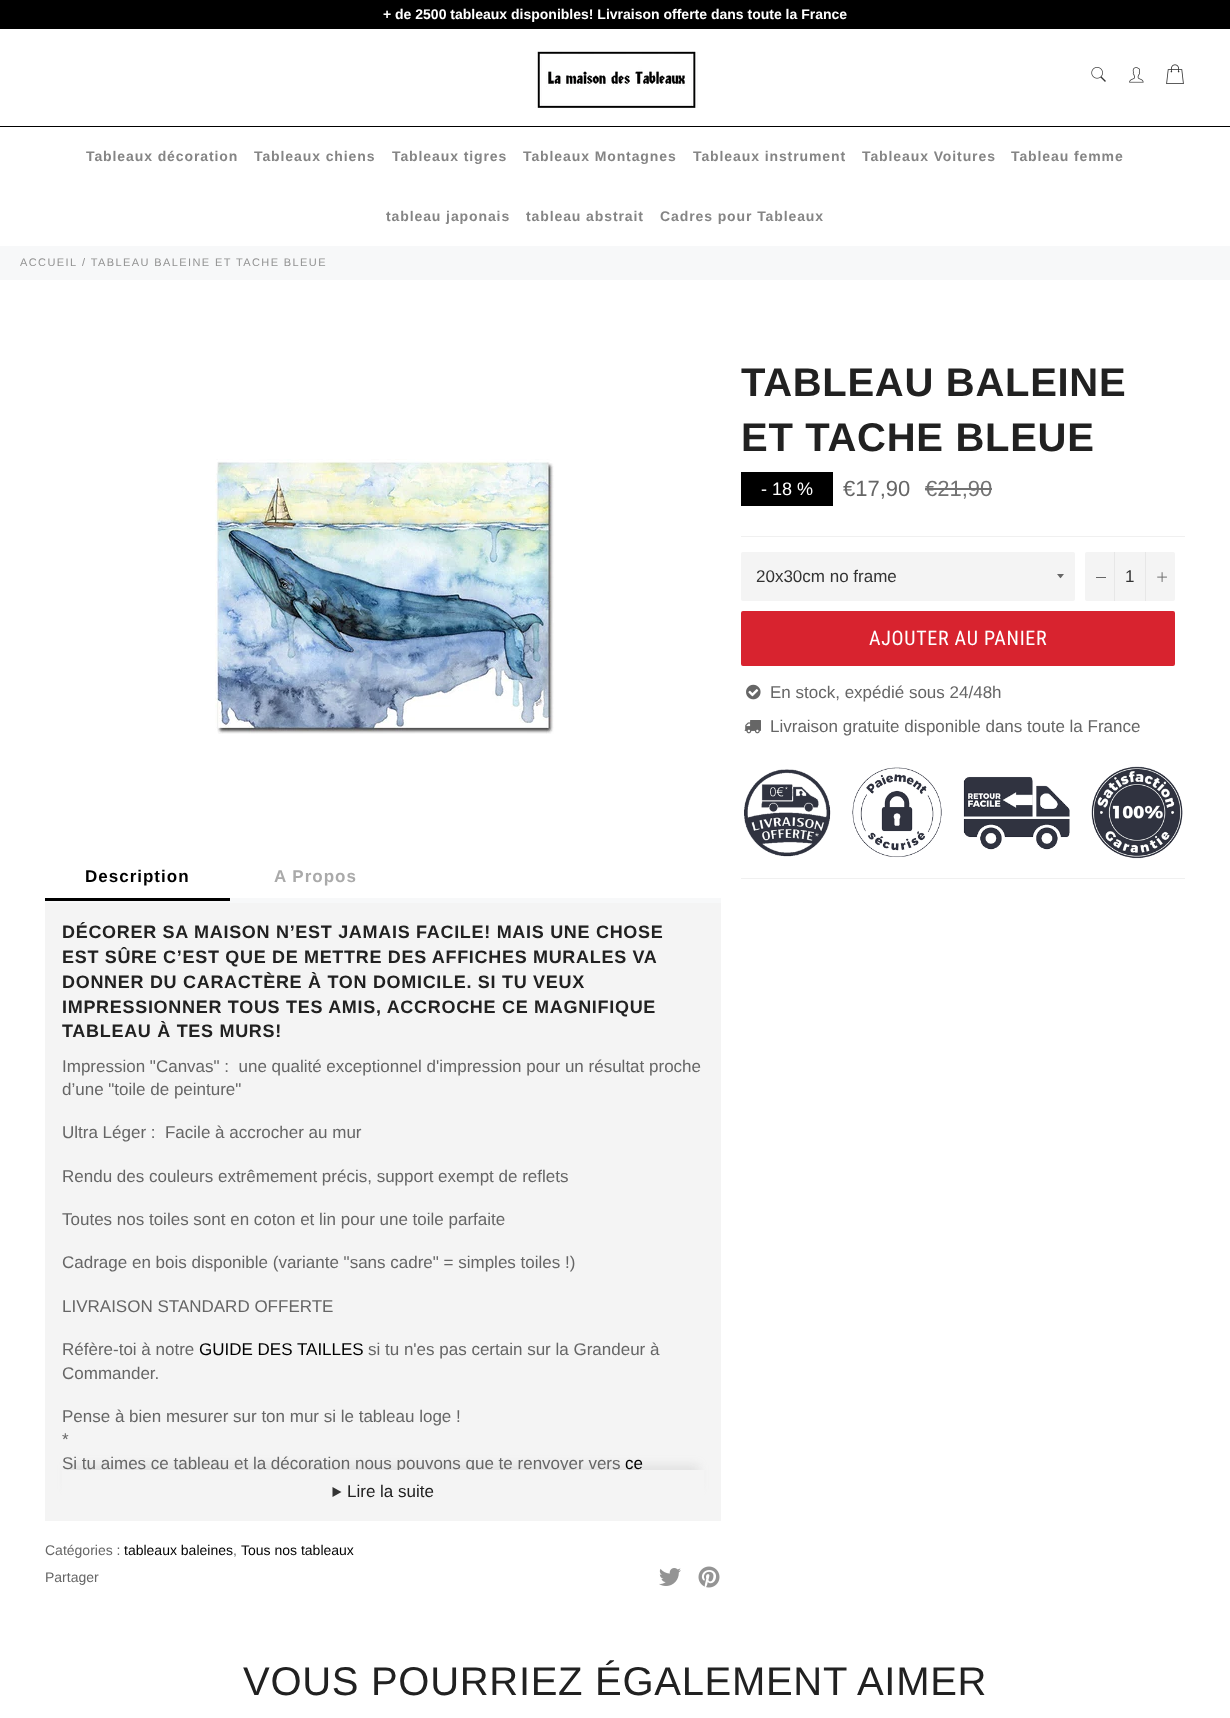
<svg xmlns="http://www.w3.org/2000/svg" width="1230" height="1718">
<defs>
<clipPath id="clip1"><path d="M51 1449h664v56h-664zm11 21h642v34h-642z" clip-rule="evenodd"/></clipPath>
<clipPath id="clip2"><rect x="62" y="920" width="642" height="550"/></clipPath>
</defs>
<rect width="100%" height="100%" fill="#000"/>
<text x="383" y="19" style="font-family:Liberation Sans;font-size:14px;font-weight:bold;fill:#fff">+ de 2500 tableaux disponibles! Livraison offerte dans toute la France</text>
<rect y="29" width="1230" height="97" fill="#fff"/>
<image x="535" y="51" width="163" height="57" href="media/1.png"/>
<image x="1091" y="67" width="15" height="15" href="media/2.png"/>
<image x="1129" y="67" width="15" height="16" href="media/3.png"/>
<image x="1166" y="64" width="18" height="20" href="media/4.png"/>
<rect y="127" width="1230" height="119" fill="#fff"/>
<text x="86" y="161" style="font-family:Liberation Sans;font-size:14px;font-weight:bold;letter-spacing:0.9px;fill:#858585">Tableaux décoration</text>
<text x="254" y="161" style="font-family:Liberation Sans;font-size:14px;font-weight:bold;letter-spacing:0.9px;fill:#858585">Tableaux chiens</text>
<text x="392" y="161" style="font-family:Liberation Sans;font-size:14px;font-weight:bold;letter-spacing:0.9px;fill:#858585">Tableaux tigres</text>
<text x="523" y="161" style="font-family:Liberation Sans;font-size:14px;font-weight:bold;letter-spacing:0.9px;fill:#858585">Tableaux Montagnes</text>
<text x="693" y="161" style="font-family:Liberation Sans;font-size:14px;font-weight:bold;letter-spacing:0.9px;fill:#858585">Tableaux instrument</text>
<text x="862" y="161" style="font-family:Liberation Sans;font-size:14px;font-weight:bold;letter-spacing:0.9px;fill:#858585">Tableaux Voitures</text>
<text x="1011" y="161" style="font-family:Liberation Sans;font-size:14px;font-weight:bold;letter-spacing:0.9px;fill:#858585">Tableau femme</text>
<text x="386" y="221" style="font-family:Liberation Sans;font-size:14px;font-weight:bold;letter-spacing:0.9px;fill:#858585">tableau japonais</text>
<text x="526" y="221" style="font-family:Liberation Sans;font-size:14px;font-weight:bold;letter-spacing:0.9px;fill:#858585">tableau abstrait</text>
<text x="660" y="221" style="font-family:Liberation Sans;font-size:14px;font-weight:bold;letter-spacing:0.9px;fill:#858585">Cadres pour Tableaux</text>
<rect y="280" width="1230" height="1438" fill="#fff"/>
<rect y="246" width="1230" height="34" fill="#f7f8f9"/>
<text x="20" y="266" style="font-family:Liberation Sans;font-size:11px;letter-spacing:1.4px;fill:#929292">ACCUEIL</text>
<text x="82" y="266" style="font-family:Liberation Sans;font-size:11px;letter-spacing:1.4px;fill:#929292">/ TABLEAU BALEINE ET TACHE BLEUE</text>
<text x="741" y="396" style="font-family:Liberation Sans;font-size:40px;font-weight:bold;letter-spacing:0.7px;fill:#212121">TABLEAU BALEINE</text>
<text x="741" y="451" style="font-family:Liberation Sans;font-size:40px;font-weight:bold;letter-spacing:0.7px;fill:#212121">ET TACHE BLEUE</text>
<rect x="741" y="472" width="92" height="34" fill="#000"/>
<text x="761" y="495" style="font-family:Liberation Sans;font-size:18px;fill:#fff">- 18 %</text>
<text x="843" y="496" style="font-family:Liberation Sans;font-size:22px;fill:#666">€17,90</text>
<text x="925" y="496" style="font-family:Liberation Sans;font-size:22px;fill:#737373">€21,90</text>
<rect x="925" y="488" width="67" height="2" fill="#737373"/>
<rect x="741" y="536" width="444" height="1" fill="#f0f0f0"/>
<rect x="741" y="552" width="334" height="49" rx="2" fill="#f4f4f4"/>
<path d="M1057 574c4.5 5.5 2.5 5.5 7 0z" fill="#666"/>
<text x="756" y="582" style="font-family:Liberation Sans;font-size:17px;fill:#333">20x30cm no frame</text>
<rect x="1085" y="552" width="90" height="49" rx="2" fill="#f4f4f4"/>
<rect x="1114" y="552" width="1" height="49" fill="#e7e7e7"/>
<rect x="1096" y="577" width="10" height="1" fill="#666"/>
<text x="1125" y="582" style="font-family:Liberation Sans;font-size:17px;fill:#333">1</text>
<rect x="1145" y="552" width="1" height="49" fill="#e7e7e7"/>
<image x="1157" y="572" width="10" height="10" href="media/5.png"/>
<rect x="742" y="612" width="432" height="53" rx="1" fill="#d8232f" stroke="#d8232f" stroke-width="2"/>
<text x="869" y="645" style="font-family:Roboto Condensed;font-size:20px;letter-spacing:0.7px;fill:#fff">AJOUTER AU PANIER</text>
<image x="746" y="684" width="15" height="16" href="media/6.png"/>
<text x="770" y="698" style="font-family:Liberation Sans;font-size:17px;fill:#666">En stock, expédié sous 24/48h</text>
<image x="744" y="720" width="17" height="14" href="media/7.png"/>
<text x="770" y="732" style="font-family:Liberation Sans;font-size:17px;fill:#666">Livraison gratuite disponible dans toute la France</text>
<image x="744" y="766" width="439" height="93" href="media/8.png"/>
<rect x="741" y="878" width="444" height="1" fill="#f0f0f0"/>
<image x="215" y="459" width="339" height="275" href="media/9.png"/>
<rect x="45" y="898" width="676" height="5" fill="#f7f8f9"/>
<rect x="45" y="898" width="185" height="3" fill="#000"/>
<text x="85" y="882" style="font-family:Liberation Sans;font-size:17px;font-weight:bold;letter-spacing:1px;fill:#000">Description</text>
<text x="274" y="882" style="font-family:Liberation Sans;font-size:17px;font-weight:bold;letter-spacing:1px;fill:#aaa">A Propos</text>
<rect x="45" y="903" width="676" height="618" fill="#f4f4f4"/>
<text x="62" y="938" style="font-family:Liberation Sans;font-size:18px;font-weight:bold;letter-spacing:0.7px;fill:#212121">DÉCORER SA MAISON N’EST JAMAIS FACILE! MAIS UNE CHOSE</text>
<text x="62" y="963" word-spacing="-0.1" style="font-family:Liberation Sans;font-size:18px;font-weight:bold;letter-spacing:0.7px;fill:#212121">EST SÛRE C’EST QUE DE METTRE DES AFFICHES MURALES VA</text>
<text x="62" y="988" style="font-family:Liberation Sans;font-size:18px;font-weight:bold;letter-spacing:0.7px;fill:#212121">DONNER DU CARACTÈRE À TON DOMICILE. SI TU VEUX</text>
<text x="62" y="1013" style="font-family:Liberation Sans;font-size:18px;font-weight:bold;letter-spacing:0.7px;fill:#212121">IMPRESSIONNER TOUS TES AMIS, ACCROCHE CE MAGNIFIQUE</text>
<text x="62" y="1037" style="font-family:Liberation Sans;font-size:18px;font-weight:bold;letter-spacing:0.7px;fill:#212121">TABLEAU À TES MURS!</text>
<text x="62" y="1072" style="font-family:Liberation Sans;font-size:17px;fill:#666" xml:space="preserve">Impression "Canvas" :  une qualité exceptionnel d'impression pour un résultat proche</text>
<text x="62" y="1095" style="font-family:Liberation Sans;font-size:17px;fill:#666">d’une "toile de peinture"</text>
<text x="62" y="1138" style="font-family:Liberation Sans;font-size:17px;fill:#666" xml:space="preserve">Ultra Léger :  Facile à accrocher au mur</text>
<text x="62" y="1182" style="font-family:Liberation Sans;font-size:17px;fill:#666">Rendu des couleurs extrêmement précis, support exempt de reflets</text>
<text x="62" y="1225" style="font-family:Liberation Sans;font-size:17px;fill:#666">Toutes nos toiles sont en coton et lin pour une toile parfaite</text>
<text x="62" y="1268" style="font-family:Liberation Sans;font-size:17px;fill:#666">Cadrage en bois disponible (variante "sans cadre" = simples toiles !)</text>
<text x="62" y="1312" style="font-family:Liberation Sans;font-size:17px;fill:#666">LIVRAISON STANDARD OFFERTE</text>
<text x="62" y="1355" style="font-family:Liberation Sans;font-size:17px;fill:#666">Réfère-toi à notre</text>
<text x="199" y="1355" style="font-family:Liberation Sans;font-size:17px;fill:#000">GUIDE DES TAILLES</text>
<text x="368" y="1355" style="font-family:Liberation Sans;font-size:17px;fill:#666">si tu n'es pas certain sur la Grandeur à</text>
<text x="62" y="1379" style="font-family:Liberation Sans;font-size:17px;fill:#666">Commander.</text>
<text x="62" y="1422" style="font-family:Liberation Sans;font-size:17px;fill:#666">Pense à bien mesurer sur ton mur si le tableau loge !</text>
<text x="62" y="1445" style="font-family:Liberation Sans;font-size:17px;fill:#666">*</text>
<g clip-path="url(#clip1)">
<rect x="67" y="1465" width="632" height="24" fill="#99999933" filter="blur(5px)"/>
</g>
<g clip-path="url(#clip2)">
<text x="62" y="1469" style="font-family:Liberation Sans;font-size:17px;fill:#666">Si tu aimes ce tableau et la décoration nous pouvons que te renvoyer vers</text>
</g>
<text x="625" y="1469" style="font-family:Liberation Sans;font-size:17px;fill:#000">ce</text>
<path d="M332.5 1487l9 5l-9 5z" fill="#333"/>
<text x="347" y="1497" style="font-family:Liberation Sans;font-size:17px;fill:#212121">Lire la suite</text>
<text x="45" y="1555" style="font-family:Liberation Sans;font-size:14px;fill:#666">Catégories :</text>
<text x="124" y="1555" style="font-family:Liberation Sans;font-size:14px;fill:#000">tableaux baleines</text>
<text x="233" y="1555" style="font-family:Liberation Sans;font-size:14px;fill:#666">,</text>
<text x="241" y="1555" style="font-family:Liberation Sans;font-size:14px;fill:#000">Tous nos tableaux</text>
<text x="45" y="1582" style="font-family:Liberation Sans;font-size:14px;fill:#666">Partager</text>
<image x="659" y="1568" width="22" height="18" href="media/10.png"/>
<image x="698" y="1566" width="22" height="22" href="media/11.png"/>
<text x="243" y="1695" style="font-family:Liberation Sans;font-size:40px;letter-spacing:0.7px;fill:#212121">VOUS POURRIEZ ÉGALEMENT AIMER</text>
</svg>
